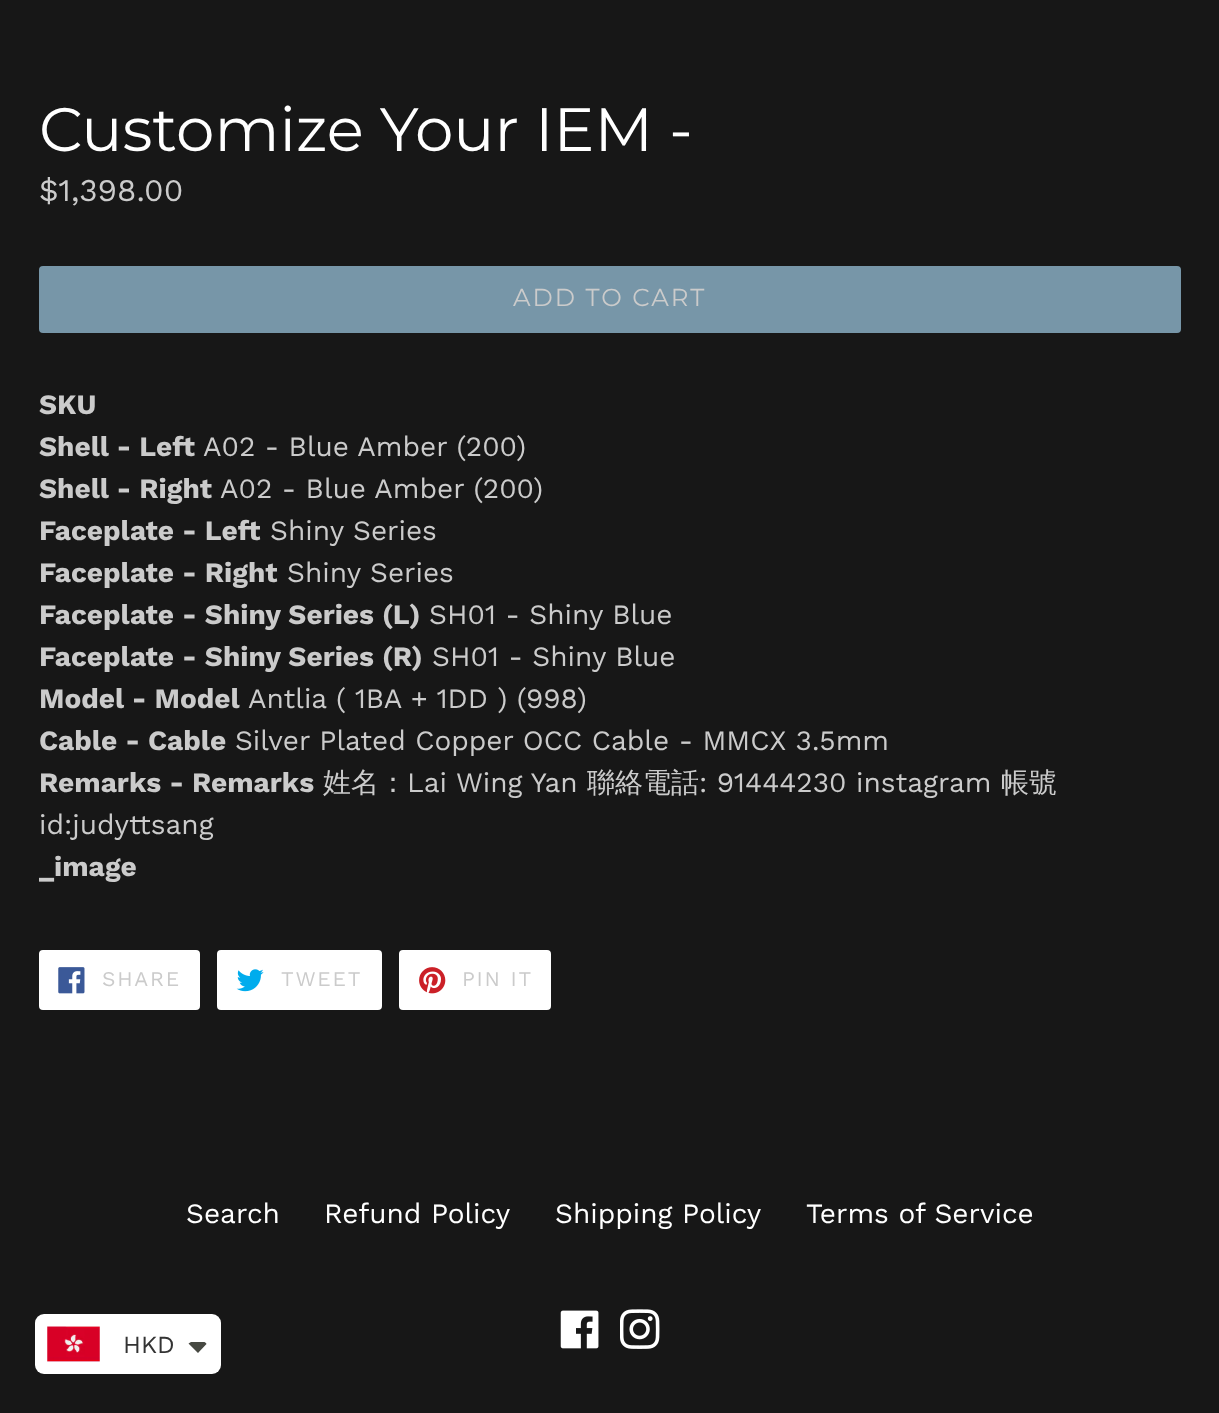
<svg xmlns="http://www.w3.org/2000/svg" width="1219" height="1413">
<rect width="100%" height="100%" fill="#171717"/>
<text x="39" y="151" style="font-family:Montserrat;font-size:61.25px;font-weight:100;fill:#fff">Customize Your IEM -</text>
<text x="39" y="201" style="font-family:Work Sans;font-size:31.5px;fill:#cbcbcb">$1,398.00</text>
<rect x="39" y="266" width="1142" height="67" rx="4" fill="#7796a8"/>
<text x="513" y="306" style="font-family:Montserrat;font-size:24.5px;font-weight:100;letter-spacing:2px;fill:#cbcbcb">ADD TO CART</text>
<text x="39" y="414" style="font-family:Work Sans;font-size:28px;font-weight:bold;fill:#cbcbcb">SKU</text>
<text x="39" y="456" style="font-family:Work Sans;font-size:28px;font-weight:bold;fill:#cbcbcb">Shell - Left</text>
<text x="203" y="456" style="font-family:Work Sans;font-size:28px;fill:#cbcbcb">A02 - Blue Amber (200)</text>
<text x="39" y="498" style="font-family:Work Sans;font-size:28px;font-weight:bold;fill:#cbcbcb">Shell - Right</text>
<text x="220" y="498" style="font-family:Work Sans;font-size:28px;fill:#cbcbcb">A02 - Blue Amber (200)</text>
<text x="39" y="540" style="font-family:Work Sans;font-size:28px;font-weight:bold;fill:#cbcbcb">Faceplate - Left</text>
<text x="270" y="540" style="font-family:Work Sans;font-size:28px;fill:#cbcbcb">Shiny Series</text>
<text x="39" y="582" style="font-family:Work Sans;font-size:28px;font-weight:bold;fill:#cbcbcb">Faceplate - Right</text>
<text x="287" y="582" style="font-family:Work Sans;font-size:28px;fill:#cbcbcb">Shiny Series</text>
<text x="39" y="624" style="font-family:Work Sans;font-size:28px;font-weight:bold;fill:#cbcbcb">Faceplate - Shiny Series (L)</text>
<text x="429" y="624" style="font-family:Work Sans;font-size:28px;fill:#cbcbcb">SH01 - Shiny Blue</text>
<text x="39" y="666" style="font-family:Work Sans;font-size:28px;font-weight:bold;fill:#cbcbcb">Faceplate - Shiny Series (R)</text>
<text x="432" y="666" style="font-family:Work Sans;font-size:28px;fill:#cbcbcb">SH01 - Shiny Blue</text>
<text x="39" y="708" style="font-family:Work Sans;font-size:28px;font-weight:bold;fill:#cbcbcb">Model - Model</text>
<text x="248" y="708" style="font-family:Work Sans;font-size:28px;fill:#cbcbcb">Antlia ( 1BA + 1DD ) (998)</text>
<text x="39" y="750" style="font-family:Work Sans;font-size:28px;font-weight:bold;fill:#cbcbcb">Cable - Cable</text>
<text x="235" y="750" style="font-family:Work Sans;font-size:28px;fill:#cbcbcb">Silver Plated Copper OCC Cable - MMCX 3.5mm</text>
<text x="39" y="792" style="font-family:Work Sans;font-size:28px;font-weight:bold;fill:#cbcbcb">Remarks - Remarks</text>
<text x="323" y="792" style="font-family:WenQuanYi Zen Hei;font-size:28px;font-weight:500;fill:#cbcbcb">姓名：</text>
<text x="407" y="792" style="font-family:Work Sans;font-size:28px;fill:#cbcbcb">Lai Wing Yan</text>
<text x="587" y="792" style="font-family:WenQuanYi Zen Hei;font-size:28px;font-weight:500;fill:#cbcbcb">聯絡電話</text>
<text x="699" y="792" style="font-family:Work Sans;font-size:28px;fill:#cbcbcb">: 91444230 instagram</text>
<text x="1001" y="792" style="font-family:WenQuanYi Zen Hei;font-size:28px;font-weight:500;fill:#cbcbcb">帳號</text>
<text x="39" y="834" style="font-family:Work Sans;font-size:28px;fill:#cbcbcb">id:judyttsang</text>
<text x="39" y="876" style="font-family:Work Sans;font-size:28px;font-weight:bold;fill:#cbcbcb">_image</text>
<rect x="40" y="951" width="159" height="58" rx="3" fill="#fff" stroke="#fff" stroke-width="2"/>
<image x="58" y="967" width="27" height="27" href="media/1.png"/>
<text x="102" y="986" style="font-family:Work Sans;font-size:21px;letter-spacing:1.75px;fill:#cbcbcb">SHARE</text>
<rect x="218" y="951" width="163" height="58" rx="3" fill="#fff" stroke="#fff" stroke-width="2"/>
<image x="236" y="969" width="28" height="23" href="media/2.png"/>
<text x="281" y="986" style="font-family:Work Sans;font-size:21px;letter-spacing:1.75px;fill:#cbcbcb">TWEET</text>
<rect x="400" y="951" width="150" height="58" rx="3" fill="#fff" stroke="#fff" stroke-width="2"/>
<image x="419" y="967" width="27" height="27" href="media/3.png"/>
<text x="462" y="986" style="font-family:Work Sans;font-size:21px;letter-spacing:1.75px;fill:#cbcbcb">PIN IT</text>
<text x="186" y="1223" style="font-family:Work Sans;font-size:28px;fill:#fff">Search</text>
<text x="324" y="1223" style="font-family:Work Sans;font-size:28px;fill:#fff">Refund Policy</text>
<text x="555" y="1223" style="font-family:Work Sans;font-size:28px;fill:#fff">Shipping Policy</text>
<text x="806" y="1223" style="font-family:Work Sans;font-size:28px;fill:#fff">Terms of Service</text>
<image x="560" y="1310" width="39" height="39" href="media/4.png"/>
<image x="620" y="1309" width="40" height="40" href="media/5.png"/>
<rect x="35" y="1314" width="186" height="60" rx="9" fill="#fff"/>
<image x="47" y="1326" width="53" height="36" href="media/6.png"/>
<text x="123" y="1353" style="font-family:Work Sans;font-size:24.5px;fill:#333">HKD</text>
<path d="M188.5 1343.5c1-.5 1.5-1 2.5-1.5h13.5c1 .5 1.5 1 2 2l-8.5 9z" fill="#474942"/>
</svg>
